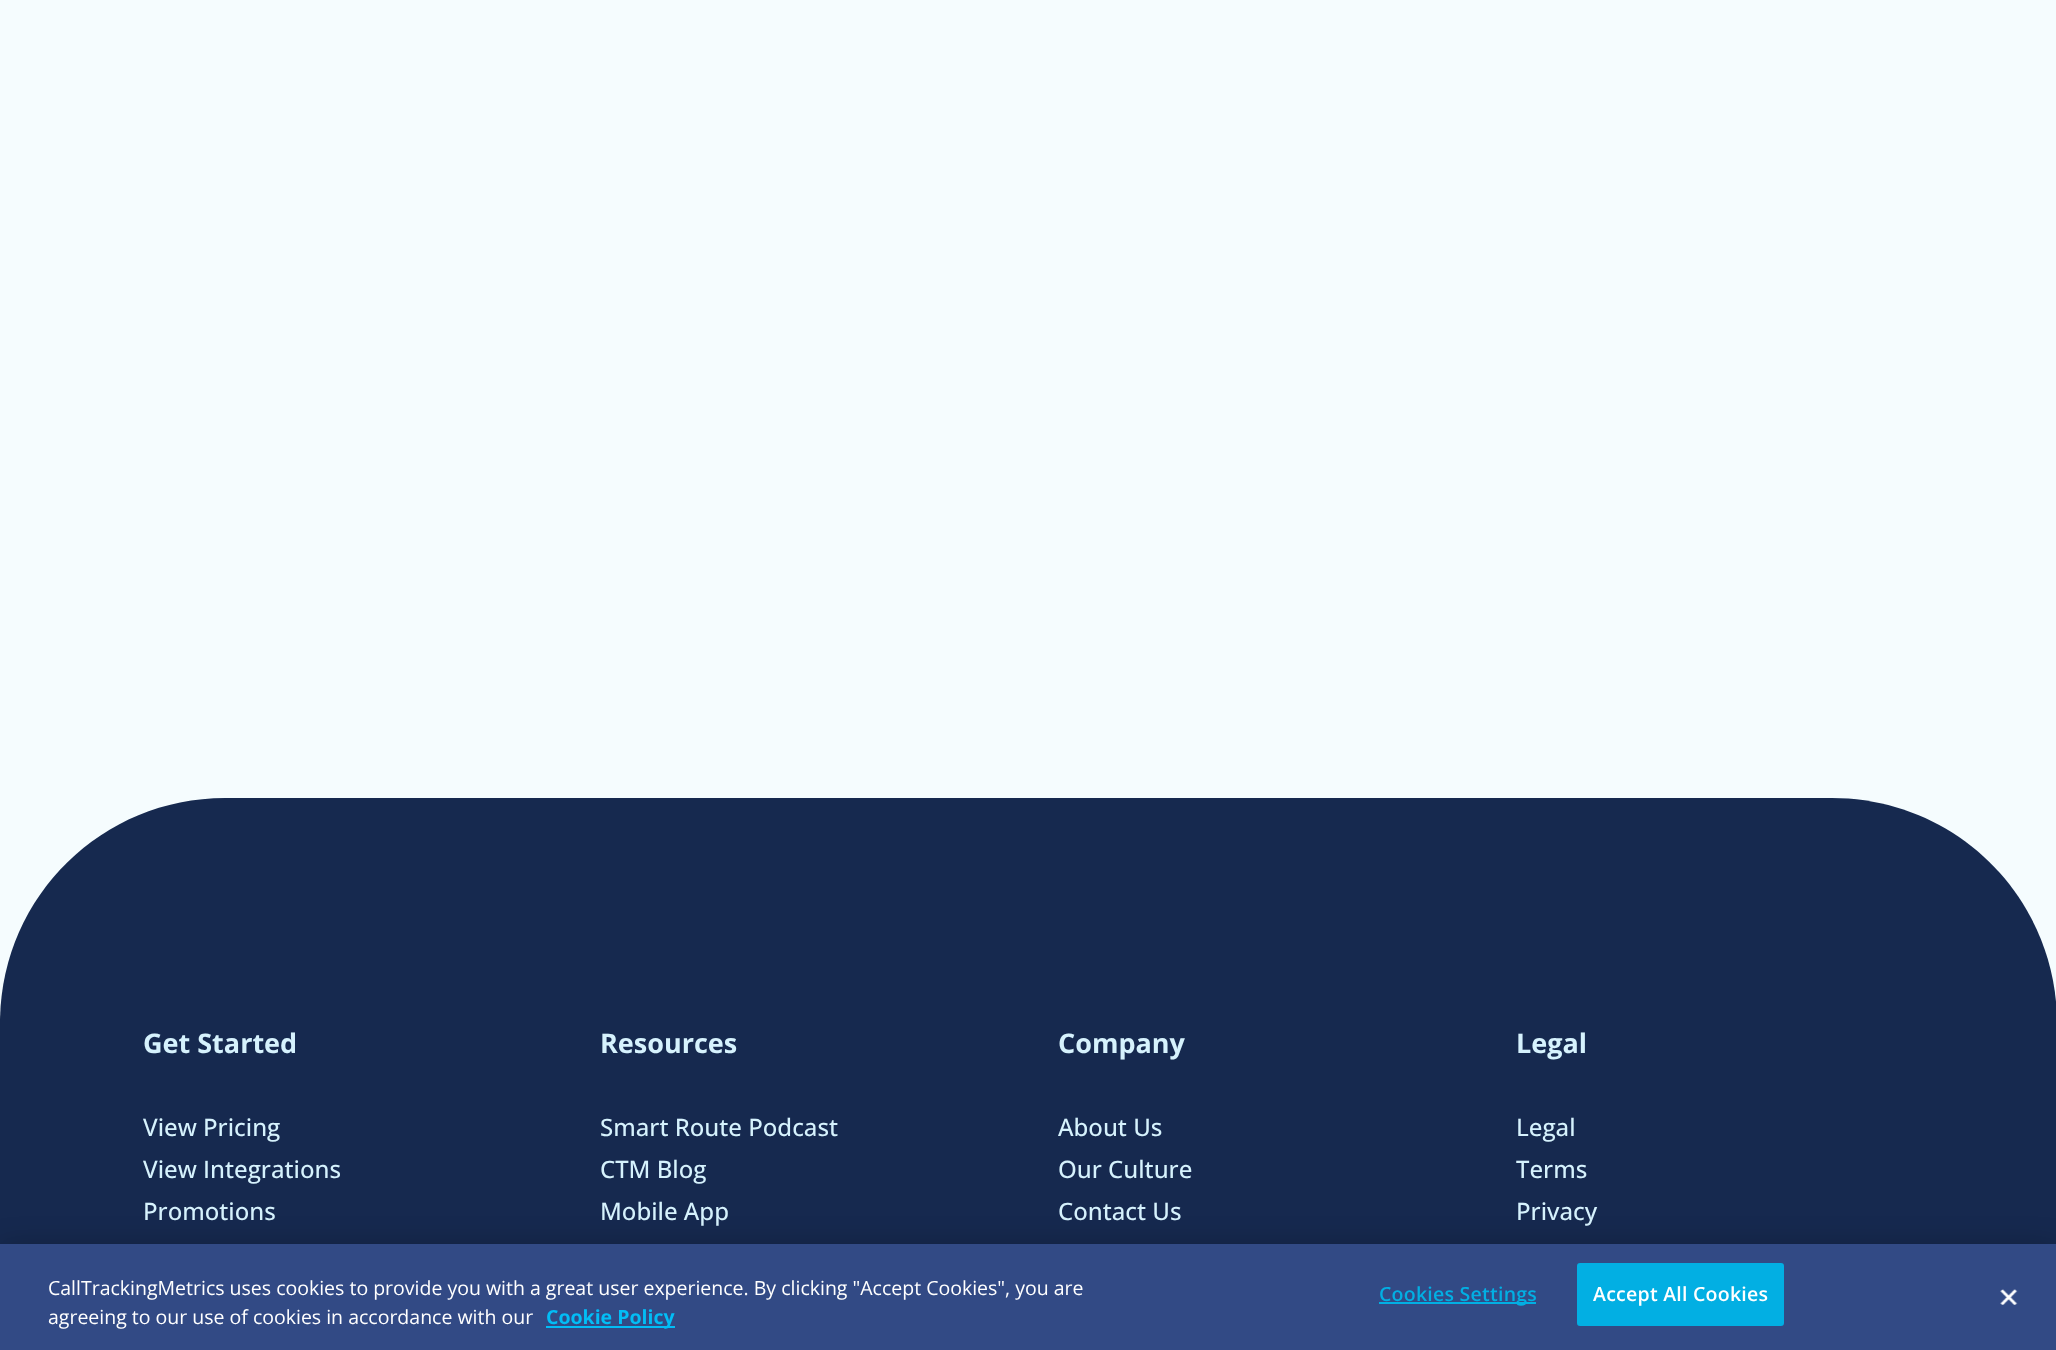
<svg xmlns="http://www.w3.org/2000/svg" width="2056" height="1350">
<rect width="100%" height="100%" fill="#f5fcfe"/>
<path d="M225 798h1607c124.5 0 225 100.5 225 225v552h-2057v-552c0-124.5 100.5-225 225-225z" fill="#16294f"/>
<text x="143" y="1053" style="font-family:Open Sans;font-size:27px;font-weight:bold;fill:#d6f2fd">Get Started</text>
<text x="143" y="1136" style="font-family:Open Sans;font-size:24px;font-weight:500;fill:#d6f2fd">View Pricing</text>
<text x="143" y="1178" style="font-family:Open Sans;font-size:24px;font-weight:500;fill:#d6f2fd">View Integrations</text>
<text x="143" y="1220" style="font-family:Open Sans;font-size:24px;font-weight:500;fill:#d6f2fd">Promotions</text>
<text x="600" y="1053" style="font-family:Open Sans;font-size:27px;font-weight:bold;fill:#d6f2fd">Resources</text>
<text x="600" y="1136" style="font-family:Open Sans;font-size:24px;font-weight:500;fill:#d6f2fd">Smart Route Podcast</text>
<text x="600" y="1178" style="font-family:Open Sans;font-size:24px;font-weight:500;fill:#d6f2fd">CTM Blog</text>
<text x="600" y="1220" style="font-family:Open Sans;font-size:24px;font-weight:500;fill:#d6f2fd">Mobile App</text>
<text x="1058" y="1053" style="font-family:Open Sans;font-size:27px;font-weight:bold;fill:#d6f2fd">Company</text>
<text x="1058" y="1136" style="font-family:Open Sans;font-size:24px;font-weight:500;fill:#d6f2fd">About Us</text>
<text x="1058" y="1178" style="font-family:Open Sans;font-size:24px;font-weight:500;fill:#d6f2fd">Our Culture</text>
<text x="1058" y="1220" style="font-family:Open Sans;font-size:24px;font-weight:500;fill:#d6f2fd">Contact Us</text>
<text x="1516" y="1053" style="font-family:Open Sans;font-size:27px;font-weight:bold;fill:#d6f2fd">Legal</text>
<text x="1516" y="1136" style="font-family:Open Sans;font-size:24px;font-weight:500;fill:#d6f2fd">Legal</text>
<text x="1516" y="1178" style="font-family:Open Sans;font-size:24px;font-weight:500;fill:#d6f2fd">Terms</text>
<text x="1516" y="1220" style="font-family:Open Sans;font-size:24px;font-weight:500;fill:#d6f2fd">Privacy</text>
<rect y="1244" width="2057" height="106" fill="#00000033" filter="blur(13.5px)"/>
<rect y="1244" width="2056" height="106" fill="#324a85"/>
<text x="48" y="1295" style="font-family:Open Sans;font-size:19.5px;fill:#fff">CallTrackingMetrics uses cookies to provide you with a great user experience. By clicking "Accept Cookies", you are</text>
<text x="48" y="1324" style="font-family:Open Sans;font-size:19.5px;fill:#fff">agreeing to our use of cookies in accordance with our</text>
<rect x="546" y="1326" width="129" height="2" fill="#02bdf6"/>
<text x="546" y="1324" style="font-family:Open Sans;font-size:19.5px;font-weight:bold;fill:#02bdf6">Cookie Policy</text>
<rect x="1379" y="1302" width="157" height="2" fill="#02afe3"/>
<text x="1379" y="1301" style="font-family:Open Sans;font-size:19.5px;font-weight:600;letter-spacing:0.25px;fill:#02afe3">Cookies Settings</text>
<rect x="1578" y="1264" width="205" height="61" rx="2" fill="#02afe3" stroke="#02afe3" stroke-width="2"/>
<text x="1593" y="1301" style="font-family:Open Sans;font-size:19.5px;font-weight:600;letter-spacing:0.25px;fill:#fff">Accept All Cookies</text>
<image x="2000" y="1289" width="18" height="16" href="media/1.png"/>
</svg>
